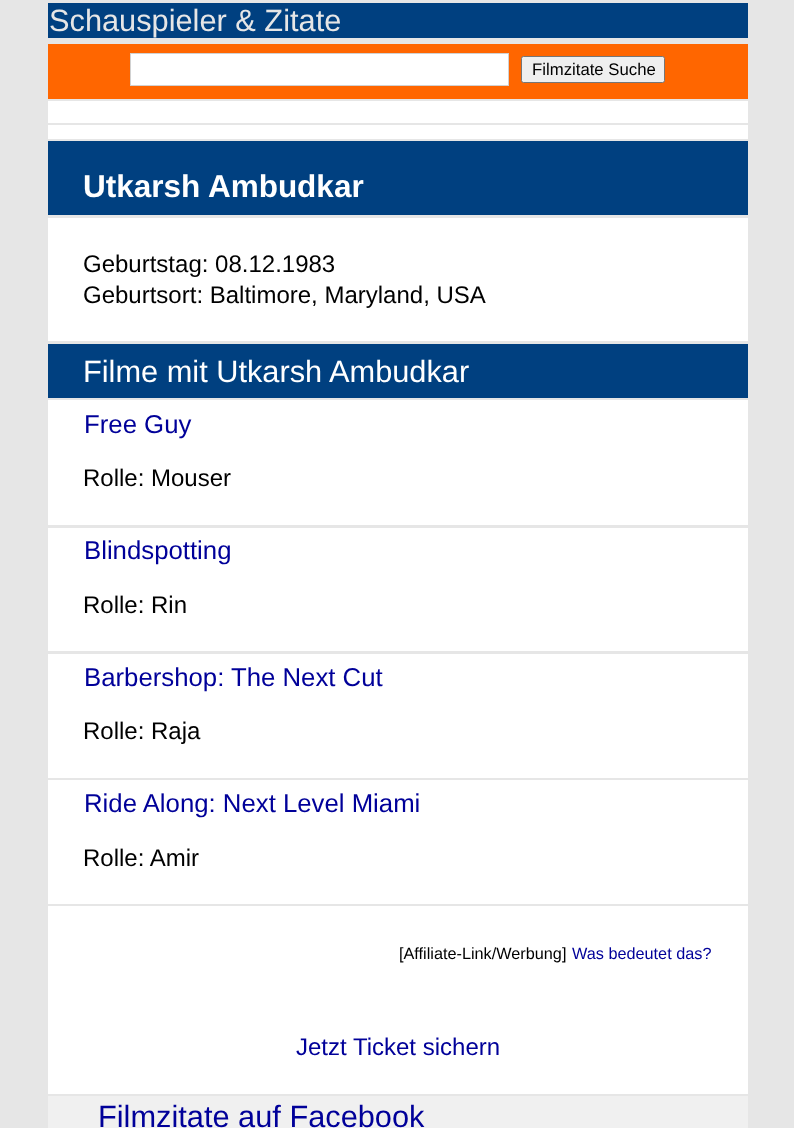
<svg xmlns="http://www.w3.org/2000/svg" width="794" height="1128">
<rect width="100%" height="100%" fill="#e6e6e6"/>
<rect x="48" y="3" width="700" height="35" fill="#004080"/>
<text x="49" y="31" style="font-family:Liberation Sans;font-size:30.75px;fill:#e6e6e6">Schauspieler &amp; Zitate</text>
<rect x="48" y="44" width="700" height="55" fill="#f60"/>
<rect x="130.5" y="53.5" width="378" height="32" fill="#fff" stroke="#d1d1d1"/>
<rect x="521.5" y="56.5" width="143" height="26" rx="2" fill="#efefef" stroke="#767676"/>
<text x="532" y="75" style="font-family:Liberation Sans;font-size:16.75px;fill:#000">Filmzitate Suche</text>
<rect x="48" y="101" width="700" height="22" fill="#fff"/>
<rect x="48" y="125" width="700" height="14" fill="#fff"/>
<rect x="48" y="141" width="700" height="74" fill="#004080"/>
<text x="83" y="197" style="font-family:Liberation Sans;font-size:31.5px;font-weight:bold;fill:#fff">Utkarsh Ambudkar</text>
<rect x="48" y="218" width="700" height="123" fill="#fff"/>
<text x="83" y="272" style="font-family:Liberation Sans;font-size:24px;fill:#000">Geburtstag: 08.12.1983</text>
<text x="83" y="303" style="font-family:Liberation Sans;font-size:24px;fill:#000">Geburtsort: Baltimore, Maryland, USA</text>
<rect x="48" y="344" width="700" height="54" fill="#004080"/>
<text x="83" y="382" style="font-family:Liberation Sans;font-size:30.75px;fill:#fff">Filme mit Utkarsh Ambudkar</text>
<rect x="48" y="400" width="700" height="125" fill="#fff"/>
<text x="84" y="433" style="font-family:Liberation Sans;font-size:25.75px;fill:#009">Free Guy</text>
<text x="83" y="486" style="font-family:Liberation Sans;font-size:24px;fill:#000">Rolle: Mouser</text>
<rect x="48" y="528" width="700" height="123" fill="#fff"/>
<text x="84" y="559" style="font-family:Liberation Sans;font-size:25.75px;fill:#009">Blindspotting</text>
<text x="83" y="613" style="font-family:Liberation Sans;font-size:24px;fill:#000">Rolle: Rin</text>
<rect x="48" y="654" width="700" height="124" fill="#fff"/>
<text x="84" y="686" style="font-family:Liberation Sans;font-size:25.75px;fill:#009">Barbershop: The Next Cut</text>
<text x="83" y="739" style="font-family:Liberation Sans;font-size:24px;fill:#000">Rolle: Raja</text>
<rect x="48" y="780" width="700" height="124" fill="#fff"/>
<text x="84" y="812" style="font-family:Liberation Sans;font-size:25.75px;fill:#009">Ride Along: Next Level Miami</text>
<text x="83" y="866" style="font-family:Liberation Sans;font-size:24px;fill:#000">Rolle: Amir</text>
<rect x="48" y="906" width="700" height="188" fill="#fff"/>
<text x="399" y="959" style="font-family:Liberation Sans;font-size:16.25px;fill:#000">[Affiliate-Link/Werbung]</text>
<text x="572" y="959" style="font-family:Liberation Sans;font-size:16.25px;fill:#009">Was bedeutet das?</text>
<text x="296" y="1055" style="font-family:Liberation Sans;font-size:24px;fill:#009">Jetzt Ticket sichern</text>
<rect x="48" y="1096" width="700" height="32" fill="#f0f0f0"/>
<text x="98" y="1127" style="font-family:Liberation Sans;font-size:30.75px;fill:#009">Filmzitate auf Facebook</text>
</svg>
